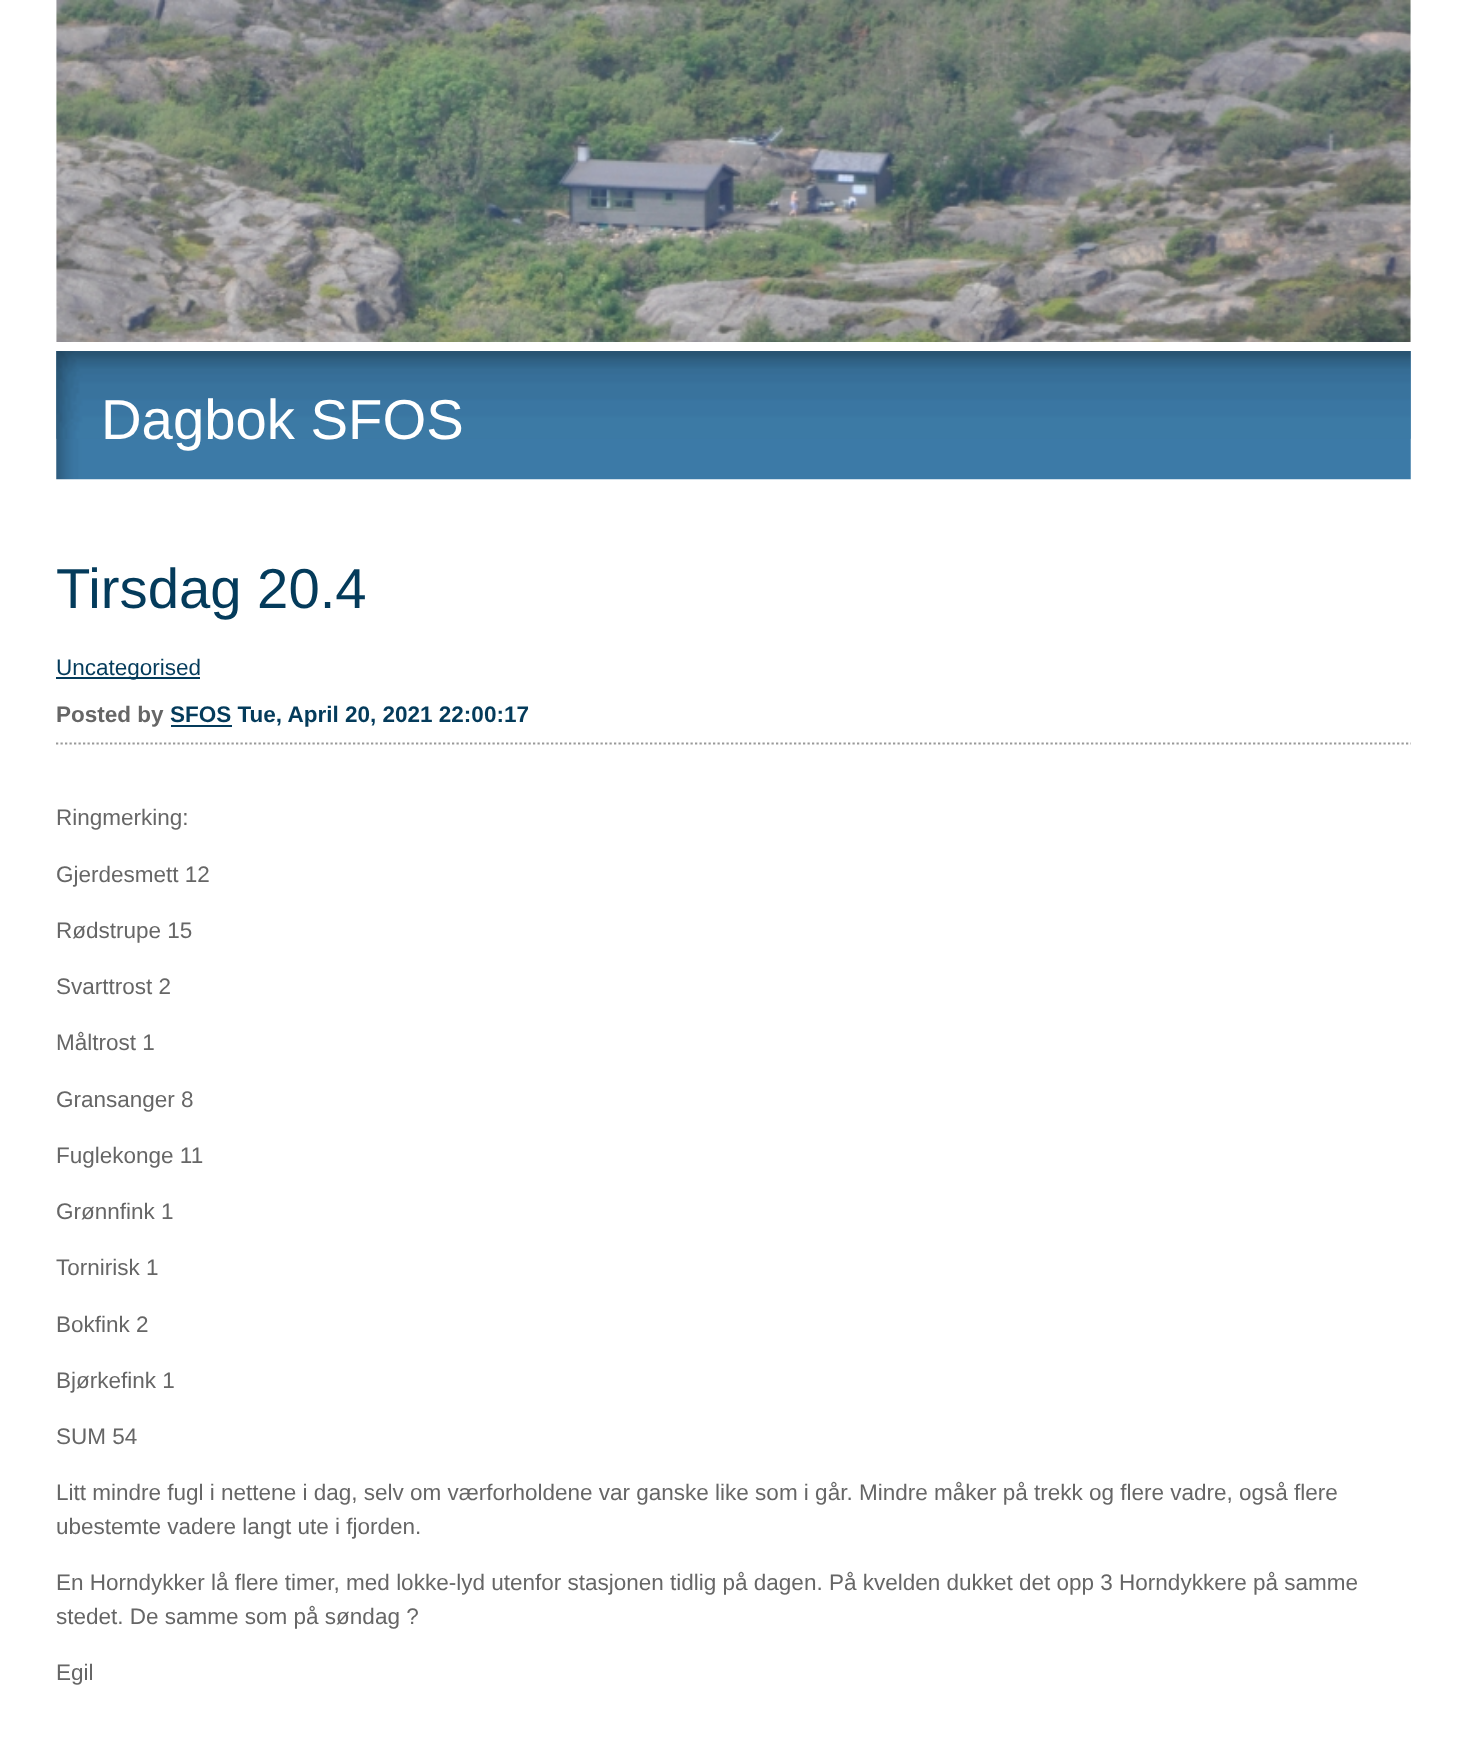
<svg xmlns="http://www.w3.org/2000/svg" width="1465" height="1740">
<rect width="100%" height="100%" fill="#fff"/>
<image x="56" y="0" width="1355" height="342" href="media/1.png"/>
<image x="56" y="351" width="1355" height="129" href="media/2.png"/>
<image x="56" y="351" width="1355" height="88" href="media/3.png"/>
<text x="101" y="439" style="font-family:Liberation Sans;font-size:56.25px;fill:#fff">Dagbok SFOS</text>
<text x="56" y="608" style="font-family:Liberation Sans;font-size:56.25px;fill:#043b5b">Tirsdag 20.4</text>
<rect x="56" y="677" width="144" height="2" fill="#043b5b"/>
<text x="56" y="675" style="font-family:Liberation Sans;font-size:22.5px;fill:#043b5b">Uncategorised</text>
<path d="M56 743.5h1355" fill="none" stroke="#999" stroke-width="2.2" stroke-dasharray="2.25 2.25"/>
<text x="56" y="722" style="font-family:Liberation Sans;font-size:22.5px;font-weight:bold;fill:#666">Posted by</text>
<rect x="171" y="725" width="61" height="2" fill="#043b5b"/>
<text x="170" y="722" style="font-family:Liberation Sans;font-size:22.5px;font-weight:bold;fill:#043b5b">SFOS Tue, April 20, 2021 22:00:17</text>
<text x="56" y="825" style="font-family:Liberation Sans;font-size:22.5px;fill:#666">Ringmerking:</text>
<text x="56" y="882" style="font-family:Liberation Sans;font-size:22.5px;fill:#666">Gjerdesmett 12</text>
<text x="56" y="938" style="font-family:Liberation Sans;font-size:22.5px;fill:#666">Rødstrupe 15</text>
<text x="56" y="994" style="font-family:Liberation Sans;font-size:22.5px;fill:#666">Svarttrost 2</text>
<text x="56" y="1050" style="font-family:Liberation Sans;font-size:22.5px;fill:#666">Måltrost 1</text>
<text x="56" y="1107" style="font-family:Liberation Sans;font-size:22.5px;fill:#666">Gransanger 8</text>
<text x="56" y="1163" style="font-family:Liberation Sans;font-size:22.5px;fill:#666">Fuglekonge 11</text>
<text x="56" y="1219" style="font-family:Liberation Sans;font-size:22.5px;fill:#666">Grønnfink 1</text>
<text x="56" y="1275" style="font-family:Liberation Sans;font-size:22.5px;fill:#666">Tornirisk 1</text>
<text x="56" y="1332" style="font-family:Liberation Sans;font-size:22.5px;fill:#666">Bokfink 2</text>
<text x="56" y="1388" style="font-family:Liberation Sans;font-size:22.5px;fill:#666">Bjørkefink 1</text>
<text x="56" y="1444" style="font-family:Liberation Sans;font-size:22.5px;fill:#666">SUM 54</text>
<text x="56" y="1500" style="font-family:Liberation Sans;font-size:22.5px;fill:#666">Litt mindre fugl i nettene i dag, selv om værforholdene var ganske like som i går. Mindre måker på trekk og flere vadre, også flere</text>
<text x="56" y="1534" style="font-family:Liberation Sans;font-size:22.5px;fill:#666">ubestemte vadere langt ute i fjorden.</text>
<text x="56" y="1590" style="font-family:Liberation Sans;font-size:22.5px;fill:#666">En Horndykker lå flere timer, med lokke-lyd utenfor stasjonen tidlig på dagen. På kvelden dukket det opp 3 Horndykkere på samme</text>
<text x="56" y="1624" style="font-family:Liberation Sans;font-size:22.5px;fill:#666">stedet. De samme som på søndag ?</text>
<text x="56" y="1680" style="font-family:Liberation Sans;font-size:22.5px;fill:#666">Egil</text>
</svg>
